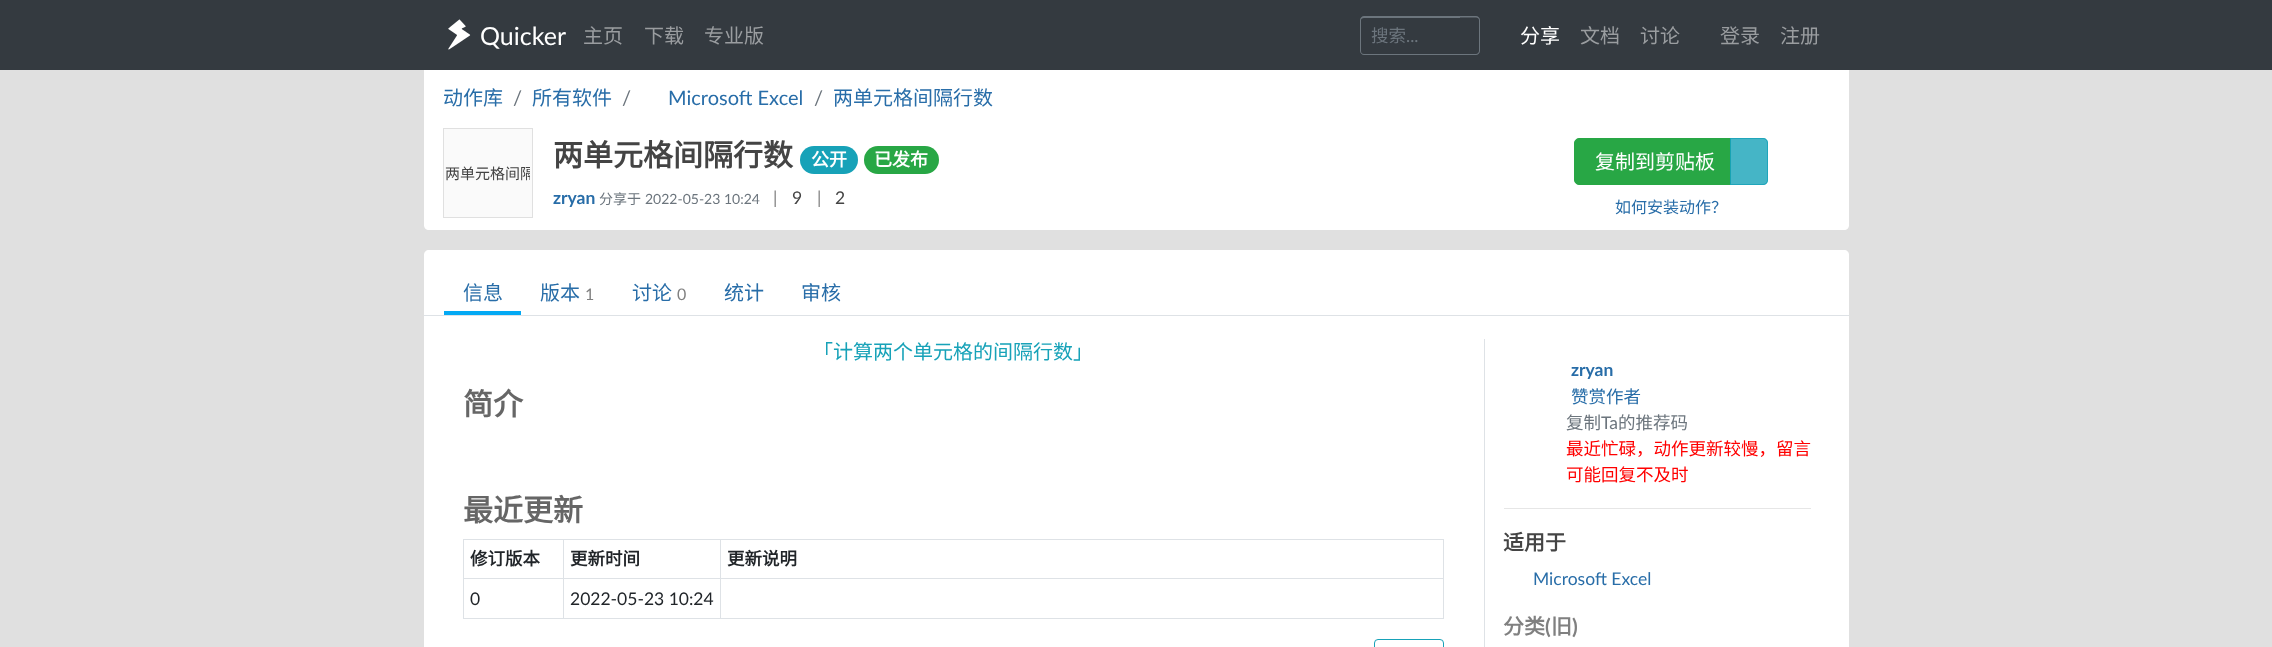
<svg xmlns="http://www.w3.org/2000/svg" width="2272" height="647">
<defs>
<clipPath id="clip1"><rect x="445" y="164" width="85" height="19"/></clipPath>
</defs>
<rect width="100%" height="100%" fill="#e0e0e0"/>
<path d="M424 68h1425v157c0 3-2 5-5 5h-1415c-3 0-5-2-5-5z" fill="#fff"/>
<rect width="2272" height="70" fill="#343a40"/>
<image x="448" y="19" width="23" height="31" href="media/1.png"/>
<text x="480" y="45" style="font-family:Lato;font-size:25px;fill:#fff">Quicker</text>
<text x="583" y="43" style="font-family:Noto Sans CJK SC;font-size:20px;fill:#9a9da0">主页</text>
<text x="644" y="43" style="font-family:Noto Sans CJK SC;font-size:20px;fill:#9a9da0">下载</text>
<text x="704" y="43" style="font-family:Noto Sans CJK SC;font-size:20px;fill:#9a9da0">专业版</text>
<path d="M1364 16h96v39h-96c-2 0-4-2-4-4v-31c0-2 2-4 4-4zm0 2h96v36h-96c-2 0-3-1-3-3v-31c0-1 1-2 3-2z" fill="#6c757d" fill-rule="evenodd"/>
<text x="1371" y="42" style="font-family:Noto Sans CJK SC;font-size:17.5px;fill:#6c757d">搜索</text>
<text x="1406" y="42" style="font-family:Lato;font-size:17.5px;fill:#6c757d">...</text>
<path d="M1459 16h17c2 0 4 2 4 4v31c0 2-2 4-4 4h-17zm0 1.5h17c1.5 0 3 1 3 2.5v31c0 1.5-1.5 3-3 3h-17z" fill="#6c757d" fill-rule="evenodd"/>
<text x="1520" y="43" style="font-family:Noto Sans CJK SC;font-size:20px;fill:#fff">分享</text>
<text x="1580" y="43" style="font-family:Noto Sans CJK SC;font-size:20px;fill:#9a9da0">文档</text>
<text x="1640" y="43" style="font-family:Noto Sans CJK SC;font-size:20px;fill:#9a9da0">讨论</text>
<text x="1720" y="43" style="font-family:Noto Sans CJK SC;font-size:20px;fill:#9a9da0">登录</text>
<text x="1780" y="43" style="font-family:Noto Sans CJK SC;font-size:20px;fill:#9a9da0">注册</text>
<text x="443" y="105" style="font-family:Noto Sans CJK SC;font-size:20px;fill:#286da8">动作库</text>
<text x="513" y="105" style="font-family:Lato;font-size:20px;fill:#6c757d">/</text>
<text x="532" y="105" style="font-family:Noto Sans CJK SC;font-size:20px;fill:#286da8">所有软件</text>
<text x="622" y="105" style="font-family:Lato;font-size:20px;fill:#6c757d">/</text>
<text x="668" y="105" style="font-family:Lato;font-size:20px;fill:#286da8">Microsoft Excel</text>
<text x="814" y="105" style="font-family:Lato;font-size:20px;fill:#6c757d">/</text>
<text x="833" y="105" style="font-family:Noto Sans CJK SC;font-size:20px;fill:#286da8">两单元格间隔行数</text>
<rect x="443.5" y="128.5" width="89" height="89" fill="#fafafa" stroke="#e0e0e0"/>
<g clip-path="url(#clip1)">
<text x="445" y="179" style="font-family:Noto Sans CJK SC;font-size:15px;fill:#444">两单元格间隔</text>
</g>
<text x="553" y="166" style="font-family:Noto Sans CJK SC;font-size:30px;font-weight:bold;fill:#444">两单元格间隔行数</text>
<rect x="800" y="146" width="58" height="28" rx="14" fill="#17a2b8"/>
<text x="811" y="166" style="font-family:Noto Sans CJK SC;font-size:18px;font-weight:bold;fill:#fff">公开</text>
<rect x="864" y="146" width="75" height="28" rx="14" fill="#28a745"/>
<text x="874" y="166" style="font-family:Noto Sans CJK SC;font-size:18px;font-weight:bold;fill:#fff">已发布</text>
<text x="553" y="204" style="font-family:Lato;font-size:17.5px;font-weight:bold;fill:#286da8">zryan</text>
<text x="599" y="204" style="font-family:Noto Sans CJK SC;font-size:14px;fill:#6c757d">分享于</text>
<text x="645" y="204" style="font-family:Lato;font-size:14px;fill:#6c757d">2022-05-23 10:24</text>
<text x="773" y="204" style="font-family:Lato;font-size:17.5px;fill:#808080">|</text>
<text x="792" y="204" style="font-family:Lato;font-size:17.5px;fill:#444">9</text>
<text x="817" y="204" style="font-family:Lato;font-size:17.5px;fill:#808080">|</text>
<text x="835" y="204" style="font-family:Lato;font-size:17.5px;fill:#444">2</text>
<path d="M1579 138.5h151.5v46h-151.5c-2.5 0-4.5-2-4.5-4.5v-37c0-2.5 2-4.5 4.5-4.5z" fill="#28a745" stroke="#28a745"/>
<text x="1595" y="169" style="font-family:Noto Sans CJK SC;font-size:20px;fill:#fff">复制到剪贴板</text>
<path d="M1730 138h33c3 0 5 2 5 5v37c0 3-2 5-5 5h-33z" fill="#17a2b8cc"/>
<path d="M1730.5 138.5h32.5c2.5 0 4.5 2 4.5 4.5v37c0 2.5-2 4.5-4.5 4.5h-32.5z" fill="none" stroke="#17a2b8cc"/>
<text x="1615" y="213" style="font-family:Noto Sans CJK SC;font-size:16px;fill:#286da8">如何安装动作？</text>
<path d="M429 250h1415c3 0 5 2 5 5v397h-1425v-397c0-3 2-5 5-5z" fill="#fff"/>
<rect x="424" y="315" width="1425" height="1" fill="#dee2e6"/>
<rect x="444" y="311" width="77" height="4" fill="#03a9f4"/>
<text x="463" y="300" style="font-family:Noto Sans CJK SC;font-size:20px;fill:#286da8">信息</text>
<text x="540" y="300" style="font-family:Noto Sans CJK SC;font-size:20px;fill:#286da8">版本</text>
<text x="585" y="300" style="font-family:Lato;font-size:16px;fill:#808080">1</text>
<text x="632" y="300" style="font-family:Noto Sans CJK SC;font-size:20px;fill:#286da8">讨论</text>
<text x="677" y="300" style="font-family:Lato;font-size:16px;fill:#808080">0</text>
<text x="724" y="300" style="font-family:Noto Sans CJK SC;font-size:20px;fill:#286da8">统计</text>
<text x="801" y="300" style="font-family:Noto Sans CJK SC;font-size:20px;fill:#286da8">审核</text>
<text x="813" y="359" style="font-family:Noto Sans CJK SC;font-size:20px;fill:#17a2b8">「计算两个单元格的间隔行数」</text>
<text x="463" y="415" style="font-family:Noto Sans CJK SC;font-size:30px;font-weight:bold;fill:#666">简介</text>
<text x="463" y="521" style="font-family:Noto Sans CJK SC;font-size:30px;font-weight:bold;fill:#666">最近更新</text>
<rect x="463" y="539" width="981" height="1" fill="#dee2e6"/>
<rect x="1443" y="539" width="1" height="80" fill="#dee2e6"/>
<rect x="463" y="618" width="981" height="1" fill="#dee2e6"/>
<rect x="463" y="539" width="1" height="80" fill="#dee2e6"/>
<text x="470" y="565" style="font-family:Noto Sans CJK SC;font-size:17.5px;font-weight:bold;fill:#212529">修订版本</text>
<rect x="720" y="578" width="724" height="1" fill="#dee2e6"/>
<rect x="720" y="578" width="1" height="41" fill="#dee2e6"/>
<rect x="563" y="578" width="158" height="1" fill="#dee2e6"/>
<rect x="563" y="578" width="1" height="41" fill="#dee2e6"/>
<rect x="463" y="578" width="101" height="1" fill="#dee2e6"/>
<rect x="563" y="539" width="1" height="40" fill="#dee2e6"/>
<text x="570" y="565" style="font-family:Noto Sans CJK SC;font-size:17.5px;font-weight:bold;fill:#212529">更新时间</text>
<rect x="720" y="539" width="1" height="40" fill="#dee2e6"/>
<text x="727" y="565" style="font-family:Noto Sans CJK SC;font-size:17.5px;font-weight:bold;fill:#212529">更新说明</text>
<text x="470" y="605" style="font-family:Lato;font-size:17.5px;fill:#212529">0</text>
<text x="570" y="605" style="font-family:Lato;font-size:17.5px;fill:#212529">2022-05-23 10:24</text>
<rect x="1374.5" y="639.5" width="69" height="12" rx="3.5" fill="none" stroke="#17a2b8"/>
<rect x="1484" y="339" width="1" height="308" fill="#dee2e6"/>
<text x="1571" y="376" style="font-family:Lato;font-size:17.5px;font-weight:bold;fill:#286da8">zryan</text>
<text x="1571" y="403" style="font-family:Noto Sans CJK SC;font-size:17.5px;fill:#286da8">赞赏作者</text>
<text x="1566" y="429" style="font-family:Noto Sans CJK SC;font-size:17.5px;fill:#6c757d">复制</text>
<text x="1601" y="429" style="font-family:Lato;font-size:17.5px;fill:#6c757d">Ta</text>
<text x="1618" y="429" style="font-family:Noto Sans CJK SC;font-size:17.5px;fill:#6c757d">的推荐码</text>
<text x="1566" y="455" style="font-family:Noto Sans CJK SC;font-size:17.5px;fill:#f00">最近忙碌，动作更新较慢，留言</text>
<text x="1566" y="481" style="font-family:Noto Sans CJK SC;font-size:17.5px;fill:#f00">可能回复不及时</text>
<rect x="1504" y="508" width="307" height="1" fill="#e6e6e6"/>
<text x="1503" y="550" style="font-family:Noto Sans CJK SC;font-size:21px;font-weight:bold;fill:#444">适用于</text>
<text x="1533" y="585" style="font-family:Lato;font-size:17.5px;fill:#286da8">Microsoft Excel</text>
<text x="1503" y="634" style="font-family:Noto Sans CJK SC;font-size:21px;font-weight:bold;fill:#808080">分类</text>
<text x="1545" y="634" style="font-family:Lato;font-size:21px;font-weight:bold;fill:#808080">(</text>
<text x="1551" y="634" style="font-family:Noto Sans CJK SC;font-size:21px;font-weight:bold;fill:#808080">旧</text>
<text x="1572" y="634" style="font-family:Lato;font-size:21px;font-weight:bold;fill:#808080">)</text>
</svg>
